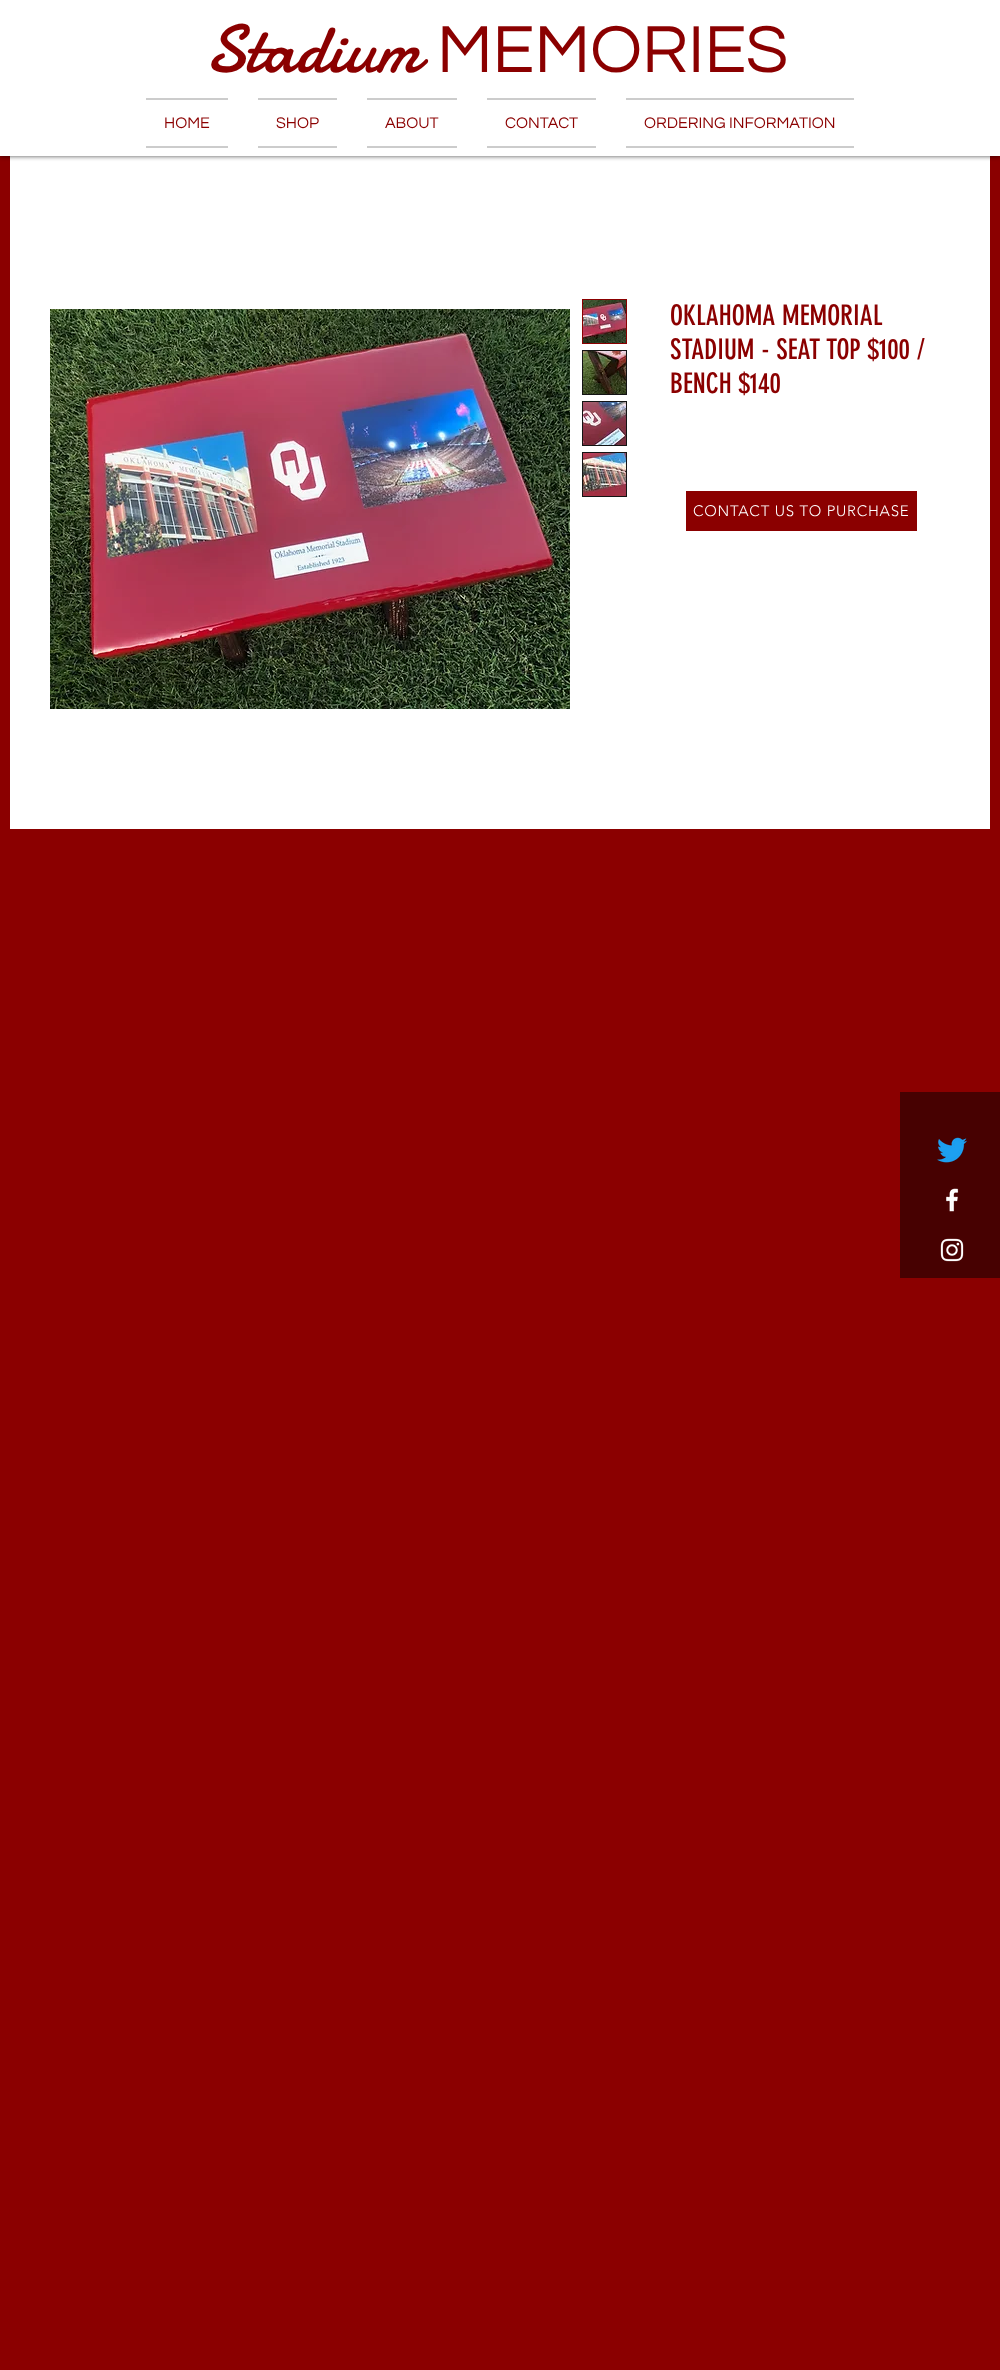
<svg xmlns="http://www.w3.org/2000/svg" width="1000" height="2370">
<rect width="100%" height="100%" fill="#8b0000"/>
<rect x="10" y="156" width="980" height="673" fill="#fff"/>
<rect width="1000" height="156" fill="#000000b3" filter="blur(2.5px)"/>
<rect width="1000" height="156" fill="#fff"/>
<text x="205" y="72" style="font-family:Damion;font-size:69px;fill:#8b0000">Stadium</text>
<text x="437" y="72" style="font-family:Questrial;font-size:69px;fill:#8b0000">MEMORIES</text>
<rect x="146" y="98" width="82" height="2" fill="#ccc"/>
<rect x="146" y="146" width="82" height="2" fill="#ccc"/>
<text x="164" y="128" style="font-family:Questrial;font-size:16px;fill:#8b0000">HOME</text>
<rect x="258" y="98" width="79" height="2" fill="#ccc"/>
<rect x="258" y="146" width="79" height="2" fill="#ccc"/>
<text x="276" y="128" style="font-family:Questrial;font-size:16px;fill:#8b0000">SHOP</text>
<rect x="367" y="98" width="90" height="2" fill="#ccc"/>
<rect x="367" y="146" width="90" height="2" fill="#ccc"/>
<text x="385" y="128" style="font-family:Questrial;font-size:16px;fill:#8b0000">ABOUT</text>
<rect x="487" y="98" width="109" height="2" fill="#ccc"/>
<rect x="487" y="146" width="109" height="2" fill="#ccc"/>
<text x="505" y="128" style="font-family:Questrial;font-size:16px;fill:#8b0000">CONTACT</text>
<rect x="626" y="98" width="228" height="2" fill="#ccc"/>
<rect x="626" y="146" width="228" height="2" fill="#ccc"/>
<text x="644" y="128" style="font-family:Questrial;font-size:16px;fill:#8b0000">ORDERING INFORMATION</text>
<image x="50" y="309" width="520" height="400" href="media/1.png"/>
<rect x="582.5" y="299.5" width="44" height="44" fill="none" stroke="#8b0000"/>
<image x="583" y="300" width="43" height="43" href="media/2.png"/>
<rect x="582.5" y="350.5" width="44" height="44" fill="none" stroke="#141414"/>
<image x="583" y="351" width="43" height="43" href="media/3.png"/>
<rect x="582.5" y="401.5" width="44" height="44" fill="none" stroke="#141414"/>
<image x="583" y="402" width="43" height="43" href="media/4.png"/>
<rect x="582.5" y="452.5" width="44" height="44" fill="none" stroke="#141414"/>
<image x="583" y="453" width="43" height="43" href="media/5.png"/>
<text x="670" y="325" style="font-family:'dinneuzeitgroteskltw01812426';font-size:28px;fill:#8b0000">OKLAHOMA MEMORIAL</text>
<text x="670" y="359" style="font-family:'dinneuzeitgroteskltw01812426';font-size:28px;fill:#8b0000">STADIUM - SEAT TOP $100 /</text>
<text x="670" y="393" style="font-family:'dinneuzeitgroteskltw01812426';font-size:28px;fill:#8b0000">BENCH $140</text>
<rect x="686" y="491" width="231" height="40" fill="#8b0000"/>
<text x="693" y="516" style="font-family:'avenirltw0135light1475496';font-size:15px;font-weight:300;letter-spacing:0.75px;fill:#fff">CONTACT US TO PURCHASE</text>
<rect x="900" y="1092" width="100" height="186" fill="#470101"/>
<image x="937" y="1137" width="30" height="26" href="media/6.png"/>
<image x="946" y="1188" width="13" height="24" href="media/7.png"/>
<image x="940" y="1238" width="24" height="24" href="media/8.png"/>
</svg>
